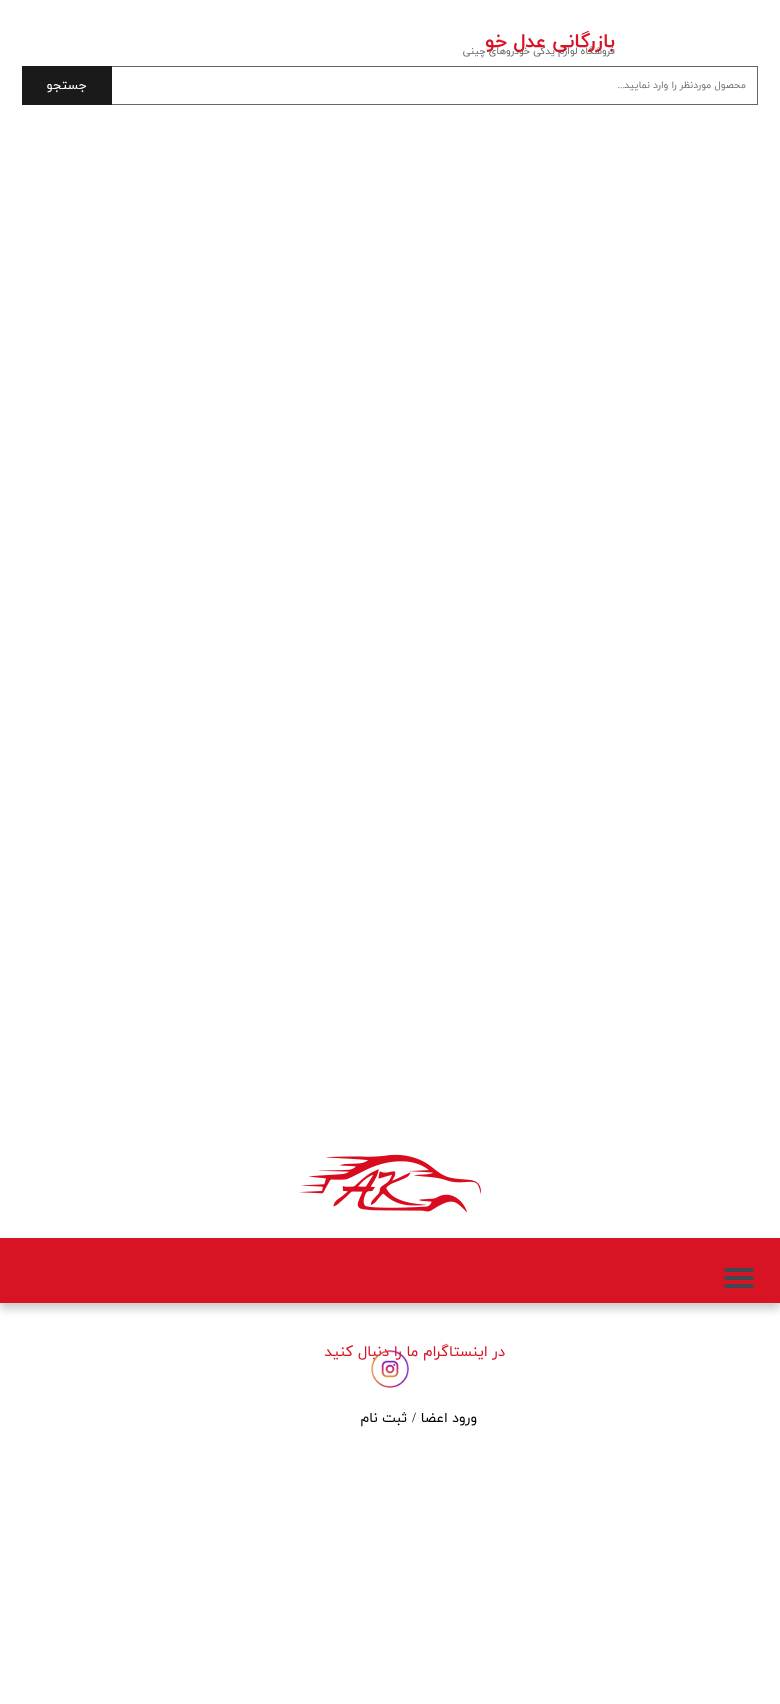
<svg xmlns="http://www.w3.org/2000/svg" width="780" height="1704">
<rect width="100%" height="100%" fill="#fff"/>
<text x="615" y="54" style="font-family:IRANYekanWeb;font-size:10px;direction:rtl;fill:#666">فروشگاه لوازم یدکی خودروهای چینی</text>
<text x="615" y="47" style="font-family:IRANYekanWeb;font-size:19.5px;font-weight:bold;direction:rtl;fill:#d81324">بازرگانی عدل خو</text>
<rect x="112" y="66" width="646" height="1" fill="#666"/>
<rect x="757" y="66" width="1" height="39" fill="#666"/>
<rect x="112" y="104" width="646" height="1" fill="#666"/>
<text x="746" y="88" style="font-family:IRANYekanWeb;font-size:10px;direction:rtl;fill:#757575">محصول موردنظر را وارد نمایید</text>
<text x="625" y="88" style="font-family:Liberation Serif;font-size:10px;direction:rtl;fill:#757575">...</text>
<rect x="22" y="66" width="90" height="39" fill="#1a1a1a"/>
<text x="87" y="89" style="font-family:IRANYekanWeb;font-size:13px;direction:rtl;fill:#fff">جستجو</text>
<image x="299" y="1154" width="182" height="59" href="media/1.png"/>
<rect y="1244" width="780" height="65" fill="#00000033" filter="blur(4.5px)"/>
<rect y="1238" width="780" height="65" fill="#d81324"/>
<rect x="724" y="1268" width="30" height="4" rx="2" fill="#424750"/>
<rect x="724" y="1276" width="30" height="4" rx="2" fill="#424750"/>
<rect x="724" y="1284" width="30" height="4" rx="2" fill="#424750"/>
<text x="505" y="1356" style="font-family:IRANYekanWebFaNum;font-size:15px;direction:rtl;fill:#d81324">در اینستاگرام ما را دنبال کنید</text>
<image x="371" y="1350" width="38" height="38" href="media/2.png"/>
<text x="477" y="1422" style="font-family:IRANYekanWeb;font-size:14px;direction:rtl;fill:#000">ورود اعضا</text>
<text x="412" y="1422" style="font-family:Liberation Serif;font-size:14px;fill:#000">/</text>
<text x="407" y="1422" style="font-family:IRANYekanWeb;font-size:14px;direction:rtl;fill:#000">ثبت نام</text>
</svg>
